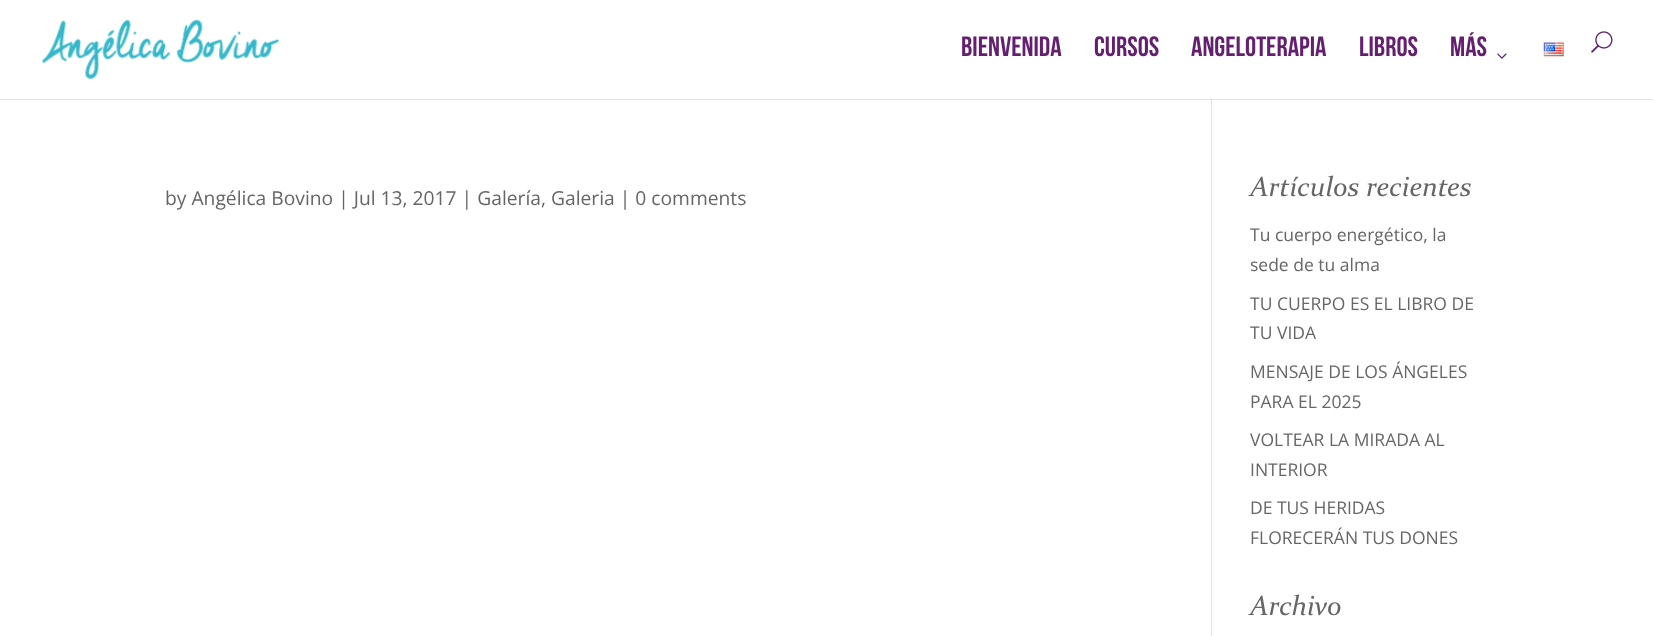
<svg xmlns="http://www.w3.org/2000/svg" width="1653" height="636">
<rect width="100%" height="100%" fill="#fff"/>
<rect x="1211" y="99" width="1" height="537" fill="#e2e2e2"/>
<path d="M0 99v1h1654v-99v98z" fill="#0000001a"/>
<image x="42" y="19" width="238" height="60" href="media/1.png"/>
<text x="961" y="56" style="font-family:Bebas Neue;font-size:28px;font-weight:bold;fill:#641f70">BIENVENIDA</text>
<text x="1094" y="56" style="font-family:Bebas Neue;font-size:28px;font-weight:bold;fill:#641f70">CURSOS</text>
<text x="1191" y="56" style="font-family:Bebas Neue;font-size:28px;font-weight:bold;fill:#641f70">ANGELOTERAPIA</text>
<text x="1359" y="56" style="font-family:Bebas Neue;font-size:28px;font-weight:bold;fill:#641f70">LIBROS</text>
<text x="1450" y="56" style="font-family:Bebas Neue;font-size:28px;font-weight:bold;fill:#641f70">MÁS</text>
<image x="1497" y="53" width="10" height="6" href="media/2.png"/>
<image x="1543" y="42" width="21" height="15" href="media/3.png"/>
<image x="1591" y="31" width="22" height="22" href="media/4.png"/>
<text x="165" y="205" style="font-family:Open Sans;font-size:19.25px;fill:#666">by Angélica Bovino | Jul 13, 2017 | Galería, Galeria | 0 comments</text>
<text x="1250" y="196" style="font-family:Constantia;font-size:28px;font-style:italic;fill:#666">Artículos recientes</text>
<text x="1250" y="241" style="font-family:Open Sans;font-size:17.5px;fill:#666">Tu cuerpo energético, la</text>
<text x="1250" y="271" style="font-family:Open Sans;font-size:17.5px;fill:#666">sede de tu alma</text>
<text x="1250" y="310" style="font-family:Open Sans;font-size:17.5px;fill:#666">TU CUERPO ES EL LIBRO DE</text>
<text x="1250" y="339" style="font-family:Open Sans;font-size:17.5px;fill:#666">TU VIDA</text>
<text x="1250" y="378" style="font-family:Open Sans;font-size:17.5px;fill:#666">MENSAJE DE LOS ÁNGELES</text>
<text x="1250" y="408" style="font-family:Open Sans;font-size:17.5px;fill:#666">PARA EL 2025</text>
<text x="1250" y="446" style="font-family:Open Sans;font-size:17.5px;fill:#666">VOLTEAR LA MIRADA AL</text>
<text x="1250" y="476" style="font-family:Open Sans;font-size:17.5px;fill:#666">INTERIOR</text>
<text x="1250" y="514" style="font-family:Open Sans;font-size:17.5px;fill:#666">DE TUS HERIDAS</text>
<text x="1250" y="544" style="font-family:Open Sans;font-size:17.5px;fill:#666">FLORECERÁN TUS DONES</text>
<text x="1250" y="615" style="font-family:Constantia;font-size:28px;font-style:italic;fill:#666">Archivo</text>
</svg>
